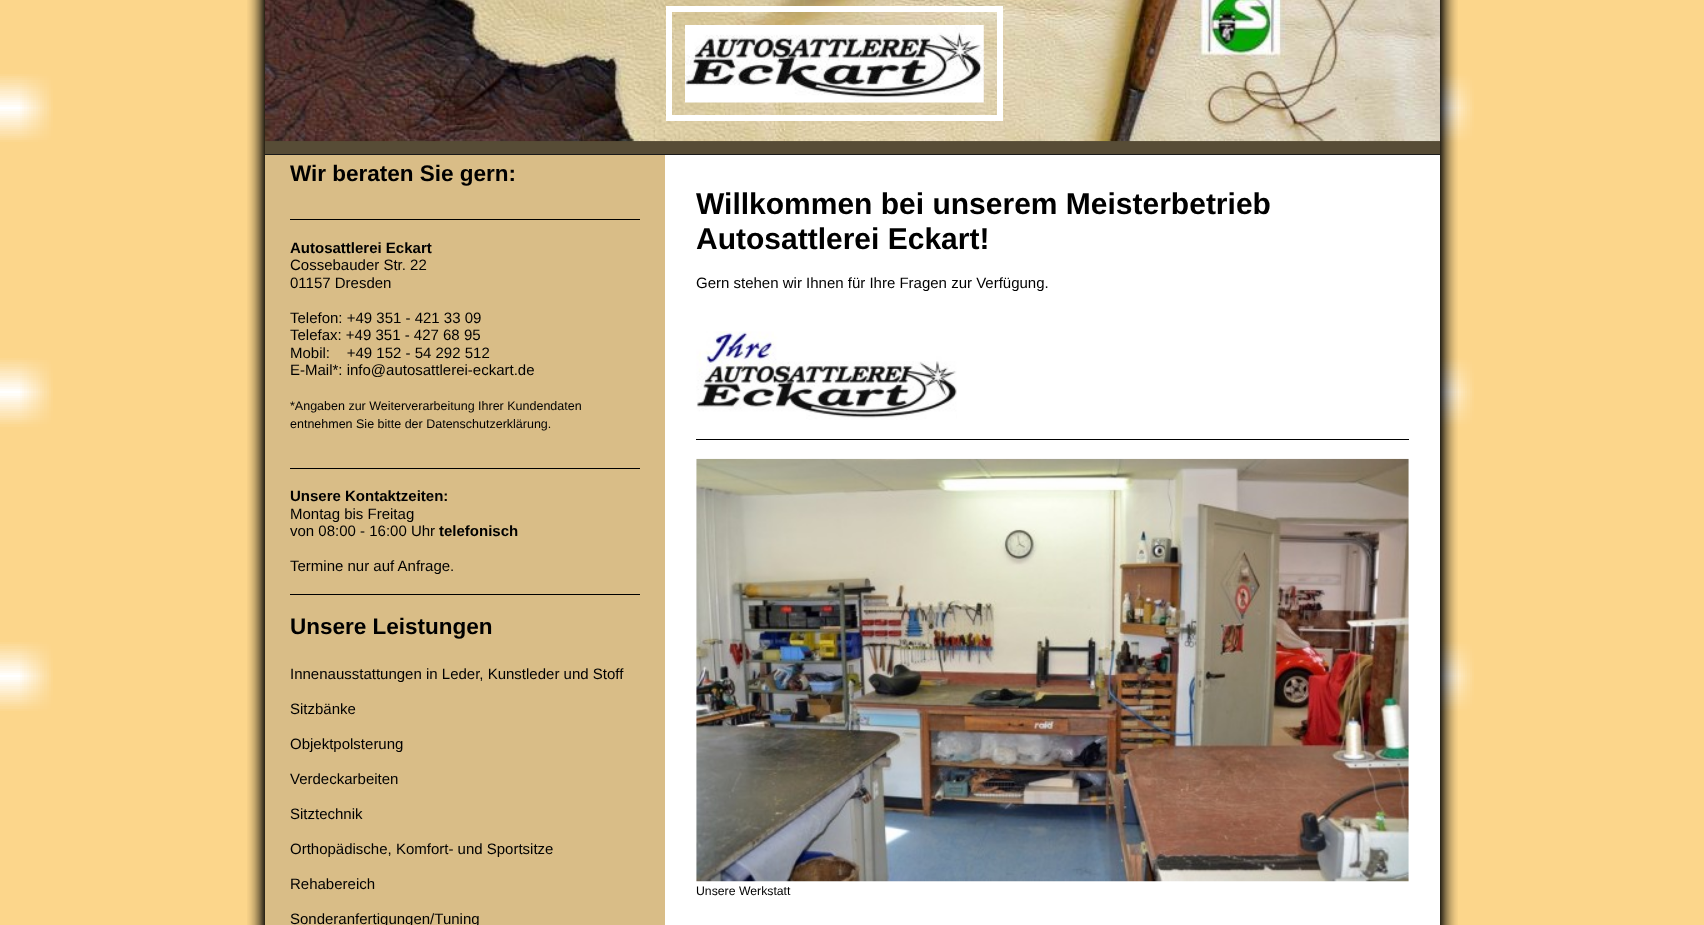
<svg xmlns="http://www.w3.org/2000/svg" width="1704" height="925">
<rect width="100%" height="100%" fill="#fcd68b"/>
<image x="0" y="74" width="1474" height="637" href="media/1.png"/>
<image x="247" y="0" width="18" height="925" href="media/2.png"/>
<rect x="265" y="141" width="1175" height="13" fill="#574c36"/>
<image x="265" y="0" width="1175" height="142" href="media/3.png"/>
<rect x="669" y="9" width="331" height="109" fill="none" stroke="#fff" stroke-width="6"/>
<image x="685" y="25" width="299" height="78" href="media/4.png"/>
<image x="1440" y="0" width="18" height="925" href="media/5.png"/>
<rect x="265" y="154" width="1175" height="1" fill="#1a1a1a"/>
<rect x="265" y="155" width="400" height="770" fill="#d9bd87"/>
<text x="290" y="181" style="font-family:Liberation Sans;font-size:22.5px;font-weight:bold;fill:#000">Wir beraten Sie gern:</text>
<rect x="290" y="219" width="350" height="1" fill="#000"/>
<text x="290" y="253" style="font-family:Liberation Sans;font-size:15px;font-weight:bold;fill:#000">Autosattlerei Eckart</text>
<text x="290" y="270" style="font-family:Liberation Sans;font-size:15px;fill:#000">Cossebauder Str. 22</text>
<text x="290" y="288" style="font-family:Liberation Sans;font-size:15px;fill:#000">01157 Dresden</text>
<text x="290" y="323" style="font-family:Liberation Sans;font-size:15px;fill:#000">Telefon: +49 351 - 421 33 09</text>
<text x="290" y="340" style="font-family:Liberation Sans;font-size:15px;fill:#000">Telefax: +49 351 - 427 68 95</text>
<text x="290" y="358" style="font-family:Liberation Sans;font-size:15px;fill:#000" xml:space="preserve">Mobil:    +49 152 - 54 292 512</text>
<text x="290" y="375" style="font-family:Liberation Sans;font-size:15px;fill:#000">E-Mail*: info@autosattlerei-eckart.de</text>
<text x="290" y="410" style="font-family:Liberation Sans;font-size:12.5px;fill:#000">*Angaben zur Weiterverarbeitung Ihrer Kundendaten</text>
<text x="290" y="428" style="font-family:Liberation Sans;font-size:12.5px;fill:#000">entnehmen Sie bitte der Datenschutzerklärung.</text>
<rect x="290" y="468" width="350" height="1" fill="#000"/>
<text x="290" y="501" style="font-family:Liberation Sans;font-size:15px;font-weight:bold;fill:#000">Unsere Kontaktzeiten:</text>
<text x="290" y="519" style="font-family:Liberation Sans;font-size:15px;fill:#000">Montag bis Freitag</text>
<text x="290" y="536" style="font-family:Liberation Sans;font-size:15px;fill:#000">von 08:00 - 16:00 Uhr</text>
<text x="439" y="536" style="font-family:Liberation Sans;font-size:15px;font-weight:bold;fill:#000">telefonisch</text>
<text x="290" y="571" style="font-family:Liberation Sans;font-size:15px;fill:#000">Termine nur auf Anfrage.</text>
<rect x="290" y="594" width="350" height="1" fill="#000"/>
<text x="290" y="634" style="font-family:Liberation Sans;font-size:22.5px;font-weight:bold;fill:#000">Unsere Leistungen</text>
<text x="290" y="679" style="font-family:Liberation Sans;font-size:15px;fill:#000">Innenausstattungen in Leder, Kunstleder und Stoff</text>
<text x="290" y="714" style="font-family:Liberation Sans;font-size:15px;fill:#000">Sitzbänke</text>
<text x="290" y="749" style="font-family:Liberation Sans;font-size:15px;fill:#000">Objektpolsterung</text>
<text x="290" y="784" style="font-family:Liberation Sans;font-size:15px;fill:#000">Verdeckarbeiten</text>
<text x="290" y="819" style="font-family:Liberation Sans;font-size:15px;fill:#000">Sitztechnik</text>
<text x="290" y="854" style="font-family:Liberation Sans;font-size:15px;fill:#000">Orthopädische, Komfort- und Sportsitze</text>
<text x="290" y="889" style="font-family:Liberation Sans;font-size:15px;fill:#000">Rehabereich</text>
<text x="290" y="924" style="font-family:Liberation Sans;font-size:15px;fill:#000">Sonderanfertigungen/Tuning</text>
<rect x="665" y="155" width="775" height="770" fill="#fff"/>
<text x="696" y="214" style="font-family:Liberation Sans;font-size:30px;font-weight:bold;fill:#000">Willkommen bei unserem Meisterbetrieb</text>
<text x="696" y="249" style="font-family:Liberation Sans;font-size:30px;font-weight:bold;fill:#000">Autosattlerei Eckart!</text>
<text x="696" y="288" style="font-family:Liberation Sans;font-size:15px;fill:#000">Gern stehen wir Ihnen für Ihre Fragen zur Verfügung.</text>
<image x="696" y="331" width="261" height="89" href="media/6.png"/>
<rect x="696" y="439" width="713" height="1" fill="#000"/>
<image x="696" y="458" width="713" height="424" href="media/7.png"/>
<text x="696" y="895" style="font-family:Liberation Sans;font-size:12.25px;fill:#000">Unsere Werkstatt</text>
</svg>
